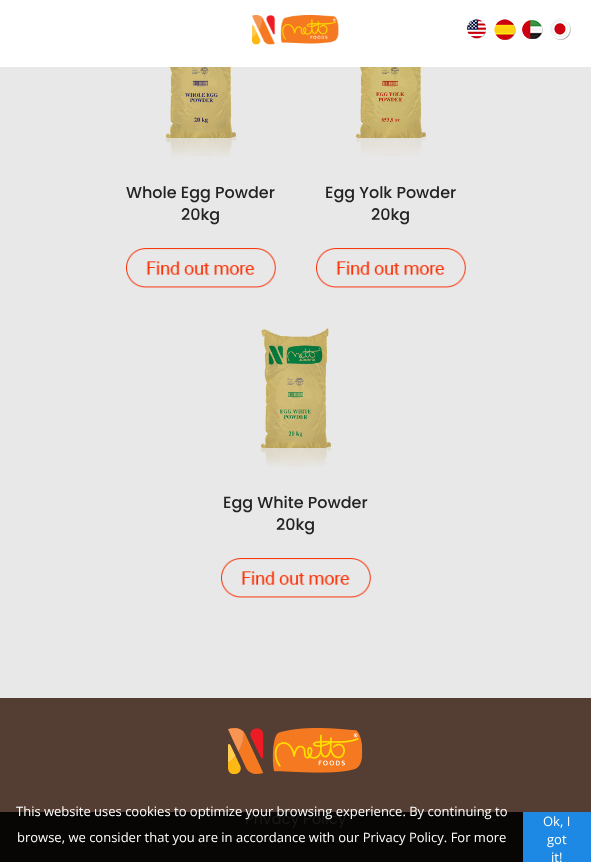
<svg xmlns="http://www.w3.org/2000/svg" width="591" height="862">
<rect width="100%" height="100%" fill="#e8e8e8"/>
<rect width="591" height="67" fill="#fff"/>
<image x="252" y="15" width="87" height="30" href="media/1.png"/>
<image x="467" y="19" width="19" height="20" href="media/2.png"/>
<image x="494" y="19" width="22" height="21" href="media/3.png"/>
<image x="522" y="20" width="21" height="19" href="media/4.png"/>
<image x="550" y="18" width="21" height="22" href="media/5.png"/>
<image x="165" y="67" width="72" height="90" href="media/6.png"/>
<text x="126" y="198" style="font-family:Poppins;font-size:16px;font-weight:500;fill:#232323">Whole Egg Powder</text>
<text x="181" y="220" style="font-family:Poppins;font-size:16px;font-weight:500;fill:#232323">20kg</text>
<image x="126" y="248" width="150" height="40" href="media/7.png"/>
<image x="356" y="67" width="70" height="89" href="media/8.png"/>
<text x="325" y="198" style="font-family:Poppins;font-size:16px;font-weight:500;fill:#232323">Egg Yolk Powder</text>
<text x="371" y="220" style="font-family:Poppins;font-size:16px;font-weight:500;fill:#232323">20kg</text>
<image x="316" y="248" width="150" height="40" href="media/7.png"/>
<image x="260" y="328" width="72" height="139" href="media/9.png"/>
<text x="223" y="508" style="font-family:Poppins;font-size:16px;font-weight:500;fill:#232323">Egg White Powder</text>
<text x="276" y="530" style="font-family:Poppins;font-size:16px;font-weight:500;fill:#232323">20kg</text>
<image x="221" y="558" width="150" height="40" href="media/10.png"/>
<rect y="698" width="591" height="114" fill="#543d32"/>
<rect y="812" width="523" height="50" fill="#080605"/>
<text x="245" y="824" style="font-family:Poppins;font-size:15px;fill:#191919">Privacy Policy</text>
<text x="16" y="816" style="font-family:Open Sans;font-size:13px;fill:#fff">This website uses cookies to optimize your browsing experience. By continuing to</text>
<text x="17" y="842" style="font-family:Open Sans;font-size:13px;fill:#fff">browse, we consider that you are in accordance with our Privacy Policy. For more</text>
<rect x="523" y="812" width="68" height="50" fill="#1e88e5"/>
<text x="543" y="826" style="font-family:Open Sans;font-size:13px;fill:#fff">Ok, I</text>
<text x="547" y="844" style="font-family:Open Sans;font-size:13px;fill:#fff">got</text>
<text x="551" y="862" style="font-family:Open Sans;font-size:13px;fill:#fff">it!</text>
<image x="228" y="728" width="135" height="46" href="media/11.png"/>
</svg>
